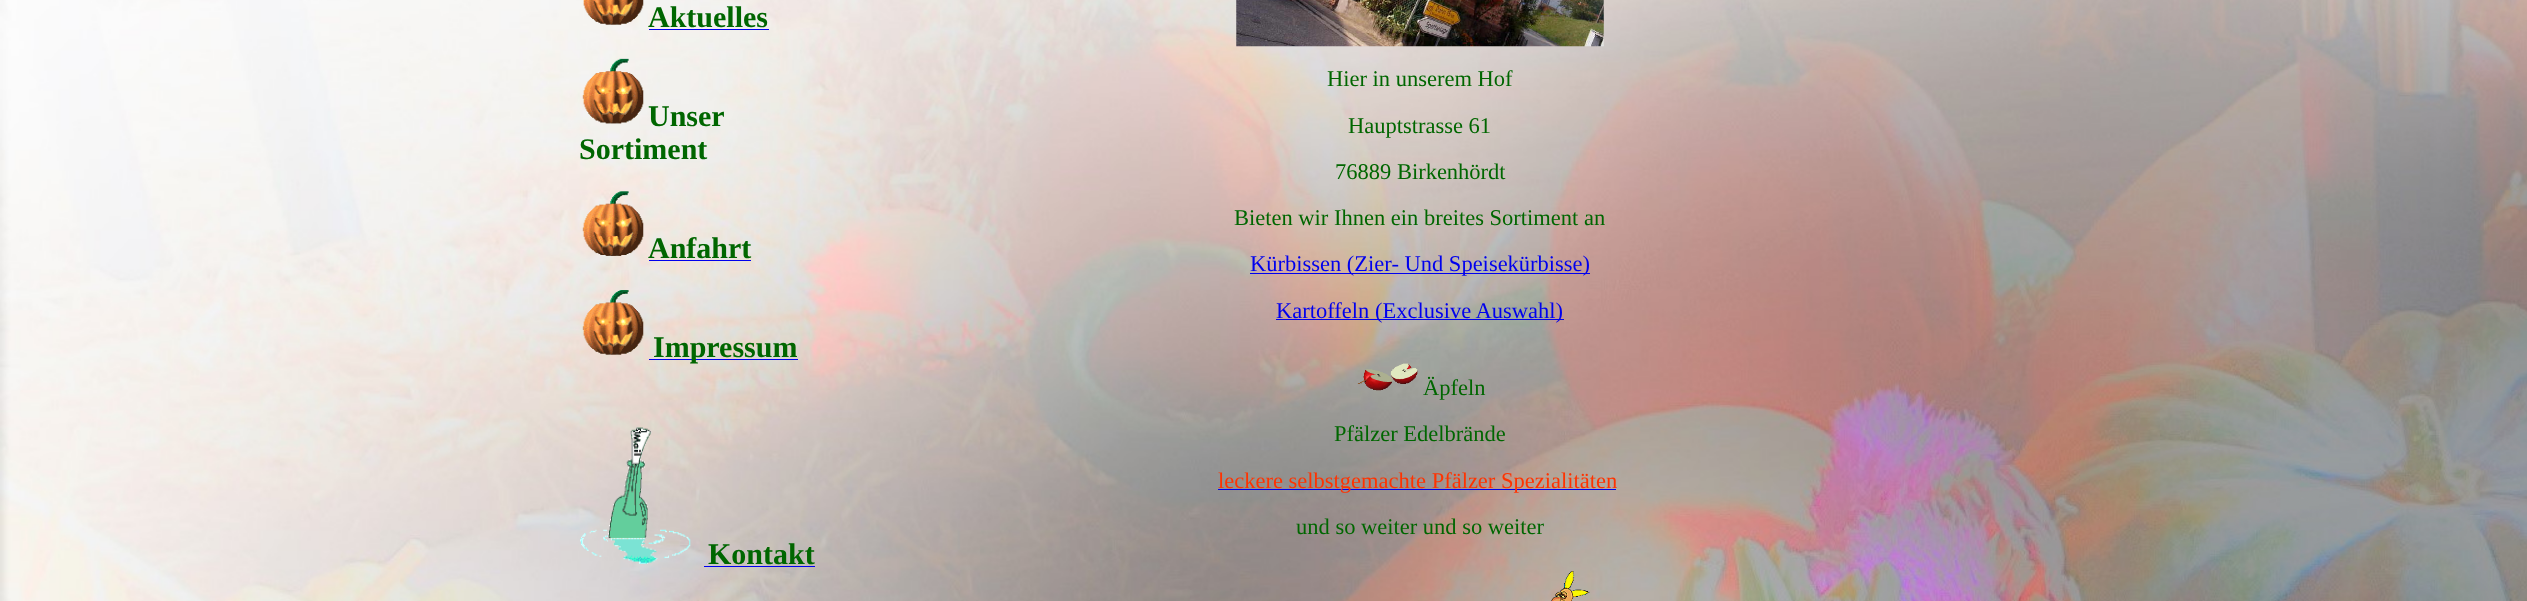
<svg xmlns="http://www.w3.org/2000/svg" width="2527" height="601">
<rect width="100%" height="100%" fill="#fff"/>
<image x="0" y="0" width="2527" height="601" href="media/1.png"/>
<image x="583" y="0" width="61" height="25" href="media/2.png"/>
<text x="648" y="27" style="font-family:Liberation Serif;font-size:30px;font-weight:bold;fill:#060">Aktuelles</text>
<rect x="649" y="29" width="120" height="1" fill="#00e"/>
<image x="582" y="58" width="62" height="66" href="media/3.png"/>
<text x="648" y="126" style="font-family:Liberation Serif;font-size:30px;font-weight:bold;fill:#060">Unser</text>
<text x="579" y="159" style="font-family:Liberation Serif;font-size:30px;font-weight:bold;fill:#060">Sortiment</text>
<image x="582" y="191" width="62" height="65" href="media/4.png"/>
<text x="648" y="258" style="font-family:Liberation Serif;font-size:30px;font-weight:bold;fill:#060">Anfahrt</text>
<rect x="649" y="260" width="102" height="1" fill="#00e"/>
<image x="582" y="290" width="62" height="65" href="media/5.png"/>
<rect x="649" y="359" width="149" height="1" fill="#00e"/>
<text x="653" y="357" style="font-family:Liberation Serif;font-size:30px;font-weight:bold;fill:#060">Impressum</text>
<image x="580" y="427" width="111" height="137" href="media/6.png"/>
<text x="708" y="564" style="font-family:Liberation Serif;font-size:30px;font-weight:bold;fill:#060">Kontakt</text>
<rect x="704" y="566" width="111" height="1" fill="#00e"/>
<image x="1236" y="0" width="368" height="47" href="media/7.png"/>
<text x="1327" y="86" style="font-family:Liberation Serif;font-size:22.5px;fill:#060">Hier in unserem Hof</text>
<text x="1348" y="133" style="font-family:Liberation Serif;font-size:22.5px;fill:#060">Hauptstrasse 61</text>
<text x="1335" y="179" style="font-family:Liberation Serif;font-size:22.5px;fill:#060">76889 Birkenhördt</text>
<text x="1234" y="225" style="font-family:Liberation Serif;font-size:22.5px;fill:#060">Bieten wir Ihnen ein breites Sortiment an</text>
<rect x="1250" y="273" width="340" height="1" fill="#00e"/>
<text x="1250" y="271" style="font-family:Liberation Serif;font-size:22.5px;fill:#00e">Kürbissen (Zier- Und Speisekürbisse)</text>
<rect x="1276" y="319" width="288" height="1" fill="#00e"/>
<text x="1276" y="318" style="font-family:Liberation Serif;font-size:22.5px;fill:#00e">Kartoffeln (Exclusive Auswahl)</text>
<image x="1357" y="363" width="61" height="28" href="media/8.png"/>
<text x="1423" y="395" style="font-family:Liberation Serif;font-size:22.5px;fill:#060">Äpfeln</text>
<text x="1334" y="441" style="font-family:Liberation Serif;font-size:22.5px;fill:#060">Pfälzer Edelbrände</text>
<rect x="1218" y="489" width="398" height="1" fill="#00e"/>
<text x="1218" y="488" style="font-family:Liberation Serif;font-size:22.5px;fill:#f30">leckere selbstgemachte Pfälzer Spezialitäten</text>
<text x="1296" y="534" style="font-family:Liberation Serif;font-size:22.5px;fill:#060">und so weiter und so weiter</text>
<image x="1551" y="571" width="39" height="30" href="media/9.png"/>
</svg>
